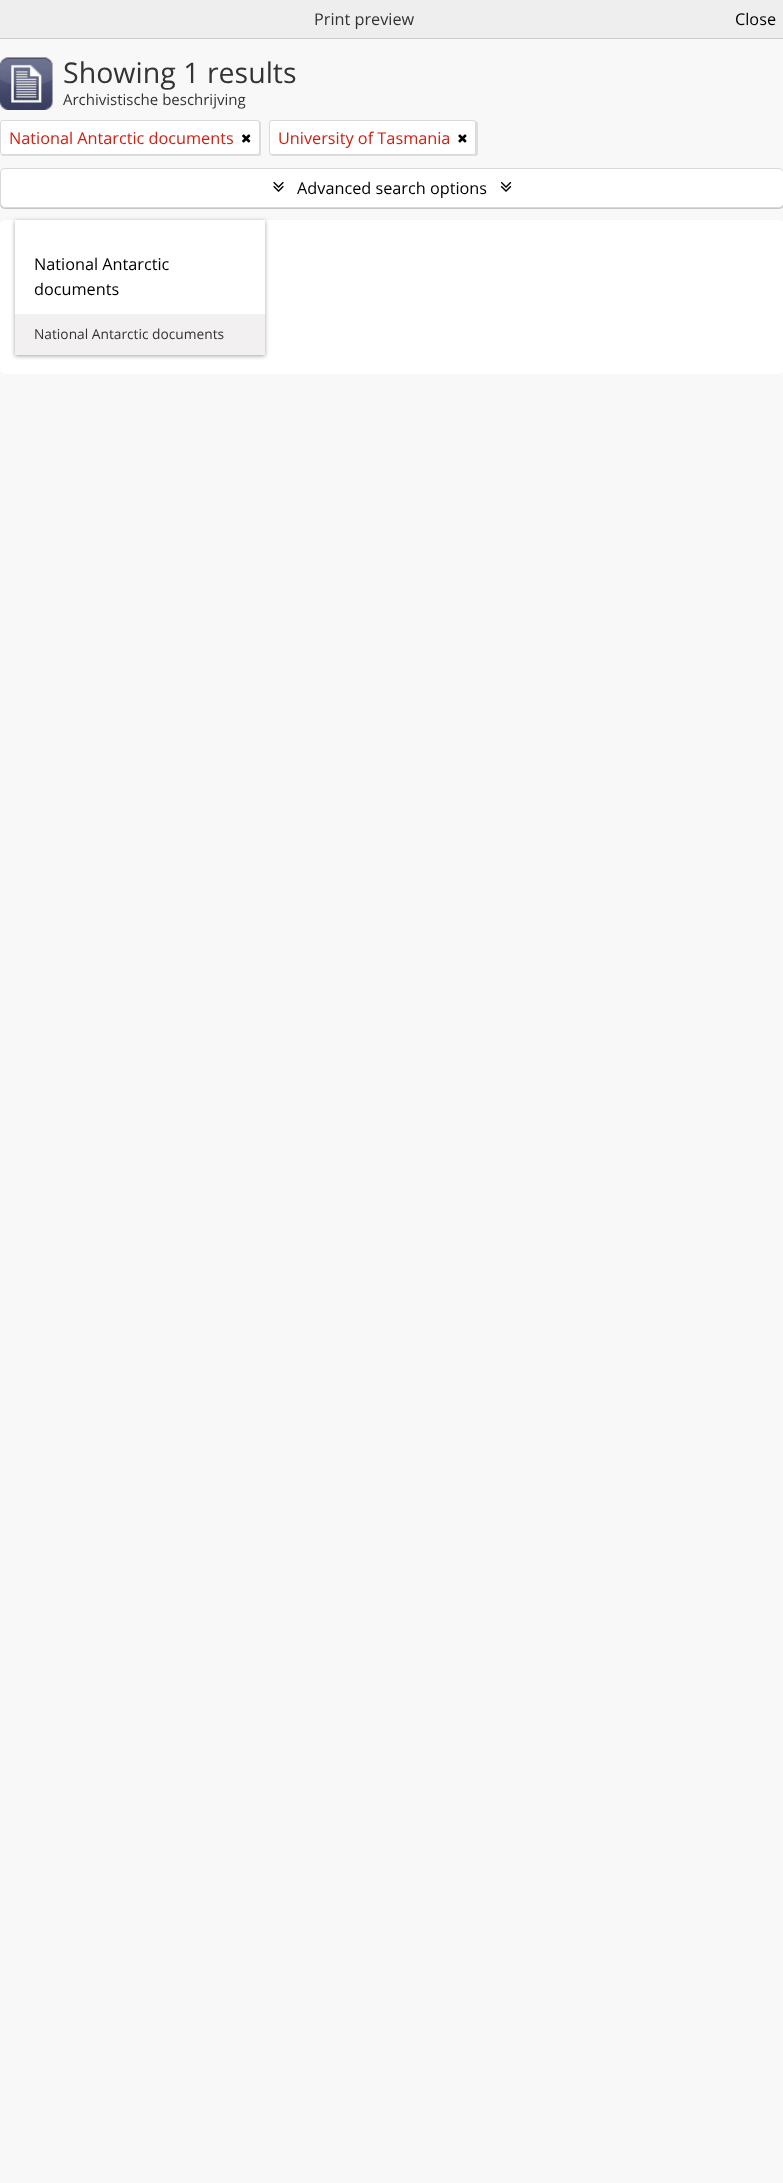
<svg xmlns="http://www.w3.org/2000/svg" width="783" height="2183">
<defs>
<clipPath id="clip1"><path d="M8 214h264v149h-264zm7 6h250v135h-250z" clip-rule="evenodd"/></clipPath>
</defs>
<rect width="100%" height="100%" fill="#f8f8f8"/>
<rect width="783" height="38" fill="#eee"/>
<rect y="38" width="783" height="1" fill="#ccc"/>
<text x="314" y="25" style="font-family:Open Sans;font-size:16.25px;fill:#333">Print preview</text>
<text x="735" y="25" style="font-family:Open Sans;font-size:16.25px;fill:#000">Close</text>
<image x="0" y="57" width="53" height="53" href="media/1.png"/>
<text x="63" y="83" style="font-family:Open Sans;font-size:28.5px;fill:#333">Showing 1 results</text>
<text x="63" y="105" style="font-family:Open Sans;font-size:15px;fill:#333">Archivistische beschrijving</text>
<rect x="1" y="121" width="260" height="35" rx="2.5" fill="#0000001a" filter="blur(0.5px)"/>
<rect x="0.5" y="120.5" width="259" height="34" rx="2" fill="#fff" stroke="#d9d9d9"/>
<text x="9" y="144" style="font-family:Open Sans;font-size:16.25px;fill:#d71d0d">National Antarctic documents</text>
<image x="242" y="134" width="9" height="9" href="media/2.png"/>
<rect x="270" y="121" width="208" height="35" rx="2.5" fill="#0000001a" filter="blur(0.5px)"/>
<rect x="269.5" y="120.5" width="206" height="34" rx="2" fill="#fff" stroke="#d9d9d9"/>
<text x="278" y="144" style="font-family:Open Sans;font-size:16.25px;fill:#d71d0d">University of Tasmania</text>
<image x="458" y="134" width="9" height="9" href="media/3.png"/>
<rect y="169" width="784" height="40" rx="5" fill="#00000033" filter="blur(0.5px)"/>
<rect x="0.5" y="168.5" width="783" height="39" rx="4.5" fill="#fff" stroke="#d9d9d9"/>
<image x="273" y="181" width="11" height="11" href="media/4.png"/>
<text x="297" y="194" style="font-family:Open Sans;font-size:16.25px;fill:#000">Advanced search options</text>
<image x="500" y="181" width="12" height="11" href="media/5.png"/>
<rect y="220" width="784" height="154" rx="5" fill="#fff"/>
<g clip-path="url(#clip1)">
<rect x="15" y="221" width="250" height="135" fill="#19191966" filter="blur(2px)"/>
</g>
<text x="34" y="270" style="font-family:Open Sans;font-size:16.25px;fill:#000">National Antarctic</text>
<text x="34" y="295" style="font-family:Open Sans;font-size:16.25px;fill:#000">documents</text>
<rect x="15" y="314" width="250" height="41" fill="#f2f0f0"/>
<text x="34" y="339" style="font-family:Open Sans;font-size:13.75px;fill:#333">National Antarctic documents</text>
</svg>
